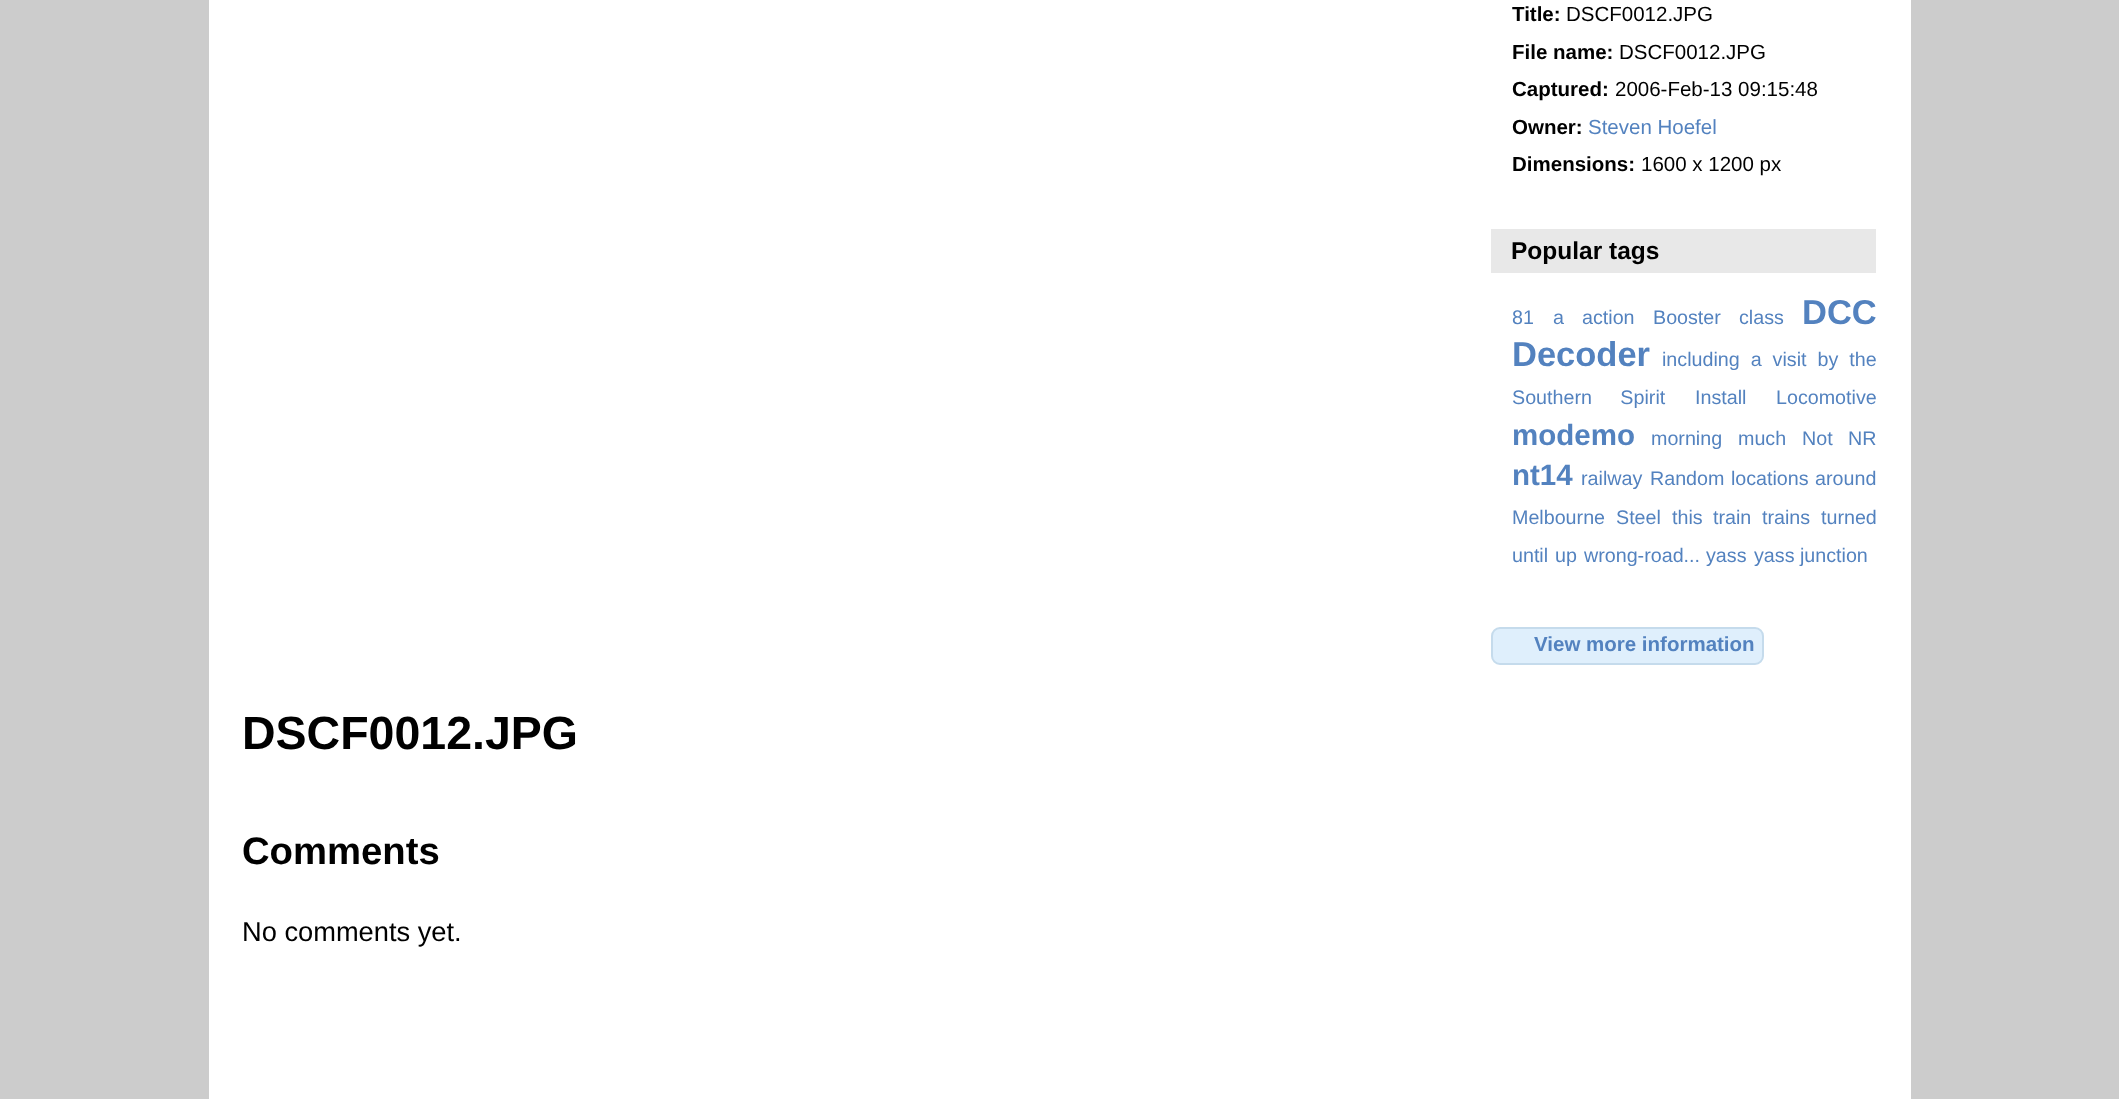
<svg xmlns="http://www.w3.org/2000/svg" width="2119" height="1099">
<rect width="100%" height="100%" fill="#ccc"/>
<rect x="209" width="1702" height="1099" fill="#fff"/>
<text x="1512" y="21" style="font-family:Liberation Sans;font-size:20.5px;font-weight:bold;fill:#000">Title:</text>
<text x="1566" y="21" style="font-family:Liberation Sans;font-size:20.5px;fill:#000">DSCF0012.JPG</text>
<text x="1512" y="59" style="font-family:Liberation Sans;font-size:20.5px;font-weight:bold;fill:#000">File name:</text>
<text x="1619" y="59" style="font-family:Liberation Sans;font-size:20.5px;fill:#000">DSCF0012.JPG</text>
<text x="1512" y="96" style="font-family:Liberation Sans;font-size:20.5px;font-weight:bold;fill:#000">Captured:</text>
<text x="1615" y="96" style="font-family:Liberation Sans;font-size:20.5px;fill:#000">2006-Feb-13 09:15:48</text>
<text x="1512" y="134" style="font-family:Liberation Sans;font-size:20.5px;font-weight:bold;fill:#000">Owner:</text>
<text x="1588" y="134" style="font-family:Liberation Sans;font-size:20.5px;fill:#5382bf">Steven Hoefel</text>
<text x="1512" y="171" style="font-family:Liberation Sans;font-size:20.5px;font-weight:bold;fill:#000">Dimensions:</text>
<text x="1641" y="171" style="font-family:Liberation Sans;font-size:20.5px;fill:#000">1600 x 1200 px</text>
<rect x="1491" y="229" width="385" height="44" fill="#e8e8e8"/>
<text x="1511" y="259" style="font-family:Liberation Sans;font-size:24.5px;font-weight:bold;fill:#000">Popular tags</text>
<text x="1512" y="324" style="font-family:Liberation Sans;font-size:19.7px;fill:#5382bf">81</text>
<text x="1553" y="324" style="font-family:Liberation Sans;font-size:19.7px;fill:#5382bf">a</text>
<text x="1582" y="324" style="font-family:Liberation Sans;font-size:19.7px;fill:#5382bf">action</text>
<text x="1653" y="324" style="font-family:Liberation Sans;font-size:19.7px;fill:#5382bf">Booster</text>
<text x="1739" y="324" style="font-family:Liberation Sans;font-size:19.7px;fill:#5382bf">class</text>
<text x="1802" y="324" style="font-family:Liberation Sans;font-size:34.5px;font-weight:bold;fill:#5382bf">DCC</text>
<text x="1512" y="366" style="font-family:Liberation Sans;font-size:34.5px;font-weight:bold;fill:#5382bf">Decoder</text>
<text x="1662" y="366" word-spacing="5.5" style="font-family:Liberation Sans;font-size:19.7px;fill:#5382bf">including a visit by the</text>
<text x="1512" y="404" word-spacing="23" style="font-family:Liberation Sans;font-size:19.7px;fill:#5382bf">Southern Spirit</text>
<text x="1695" y="404" style="font-family:Liberation Sans;font-size:19.7px;fill:#5382bf">Install</text>
<text x="1776" y="404" style="font-family:Liberation Sans;font-size:19.7px;fill:#5382bf">Locomotive</text>
<text x="1512" y="445" style="font-family:Liberation Sans;font-size:29.5px;font-weight:bold;fill:#5382bf">modemo</text>
<text x="1651" y="445" style="font-family:Liberation Sans;font-size:19.7px;fill:#5382bf">morning</text>
<text x="1738" y="445" style="font-family:Liberation Sans;font-size:19.7px;fill:#5382bf">much</text>
<text x="1802" y="445" style="font-family:Liberation Sans;font-size:19.7px;fill:#5382bf">Not</text>
<text x="1848" y="445" style="font-family:Liberation Sans;font-size:19.7px;fill:#5382bf">NR</text>
<text x="1512" y="485" style="font-family:Liberation Sans;font-size:29.5px;font-weight:bold;fill:#5382bf">nt14</text>
<text x="1581" y="485" style="font-family:Liberation Sans;font-size:19.7px;fill:#5382bf">railway</text>
<text x="1650" y="485" word-spacing="1" style="font-family:Liberation Sans;font-size:19.7px;fill:#5382bf">Random locations around</text>
<text x="1512" y="524" style="font-family:Liberation Sans;font-size:19.7px;fill:#5382bf">Melbourne</text>
<text x="1616" y="524" style="font-family:Liberation Sans;font-size:19.7px;fill:#5382bf">Steel</text>
<text x="1672" y="524" style="font-family:Liberation Sans;font-size:19.7px;fill:#5382bf">this</text>
<text x="1713" y="524" style="font-family:Liberation Sans;font-size:19.7px;fill:#5382bf">train</text>
<text x="1762" y="524" style="font-family:Liberation Sans;font-size:19.7px;fill:#5382bf">trains</text>
<text x="1821" y="524" style="font-family:Liberation Sans;font-size:19.7px;fill:#5382bf">turned</text>
<text x="1512" y="562" style="font-family:Liberation Sans;font-size:19.7px;fill:#5382bf">until</text>
<text x="1555" y="562" style="font-family:Liberation Sans;font-size:19.7px;fill:#5382bf">up</text>
<text x="1584" y="562" style="font-family:Liberation Sans;font-size:19.7px;fill:#5382bf">wrong-road...</text>
<text x="1706" y="562" style="font-family:Liberation Sans;font-size:19.7px;fill:#5382bf">yass</text>
<text x="1754" y="562" style="font-family:Liberation Sans;font-size:19.7px;fill:#5382bf">yass junction</text>
<rect x="1492" y="628" width="271" height="36" rx="8" fill="#dfeffc" stroke="#c5dbec" stroke-width="2"/>
<text x="1534" y="651" style="font-family:Liberation Sans;font-size:20.5px;font-weight:bold;fill:#5382bf">View more information</text>
<text x="242" y="749" style="font-family:Liberation Sans;font-size:46.5px;font-weight:bold;fill:#000">DSCF0012.JPG</text>
<text x="242" y="864" style="font-family:Liberation Sans;font-size:38.25px;font-weight:bold;fill:#000">Comments</text>
<text x="242" y="941" style="font-family:Liberation Sans;font-size:27.25px;fill:#000">No comments yet.</text>
</svg>
